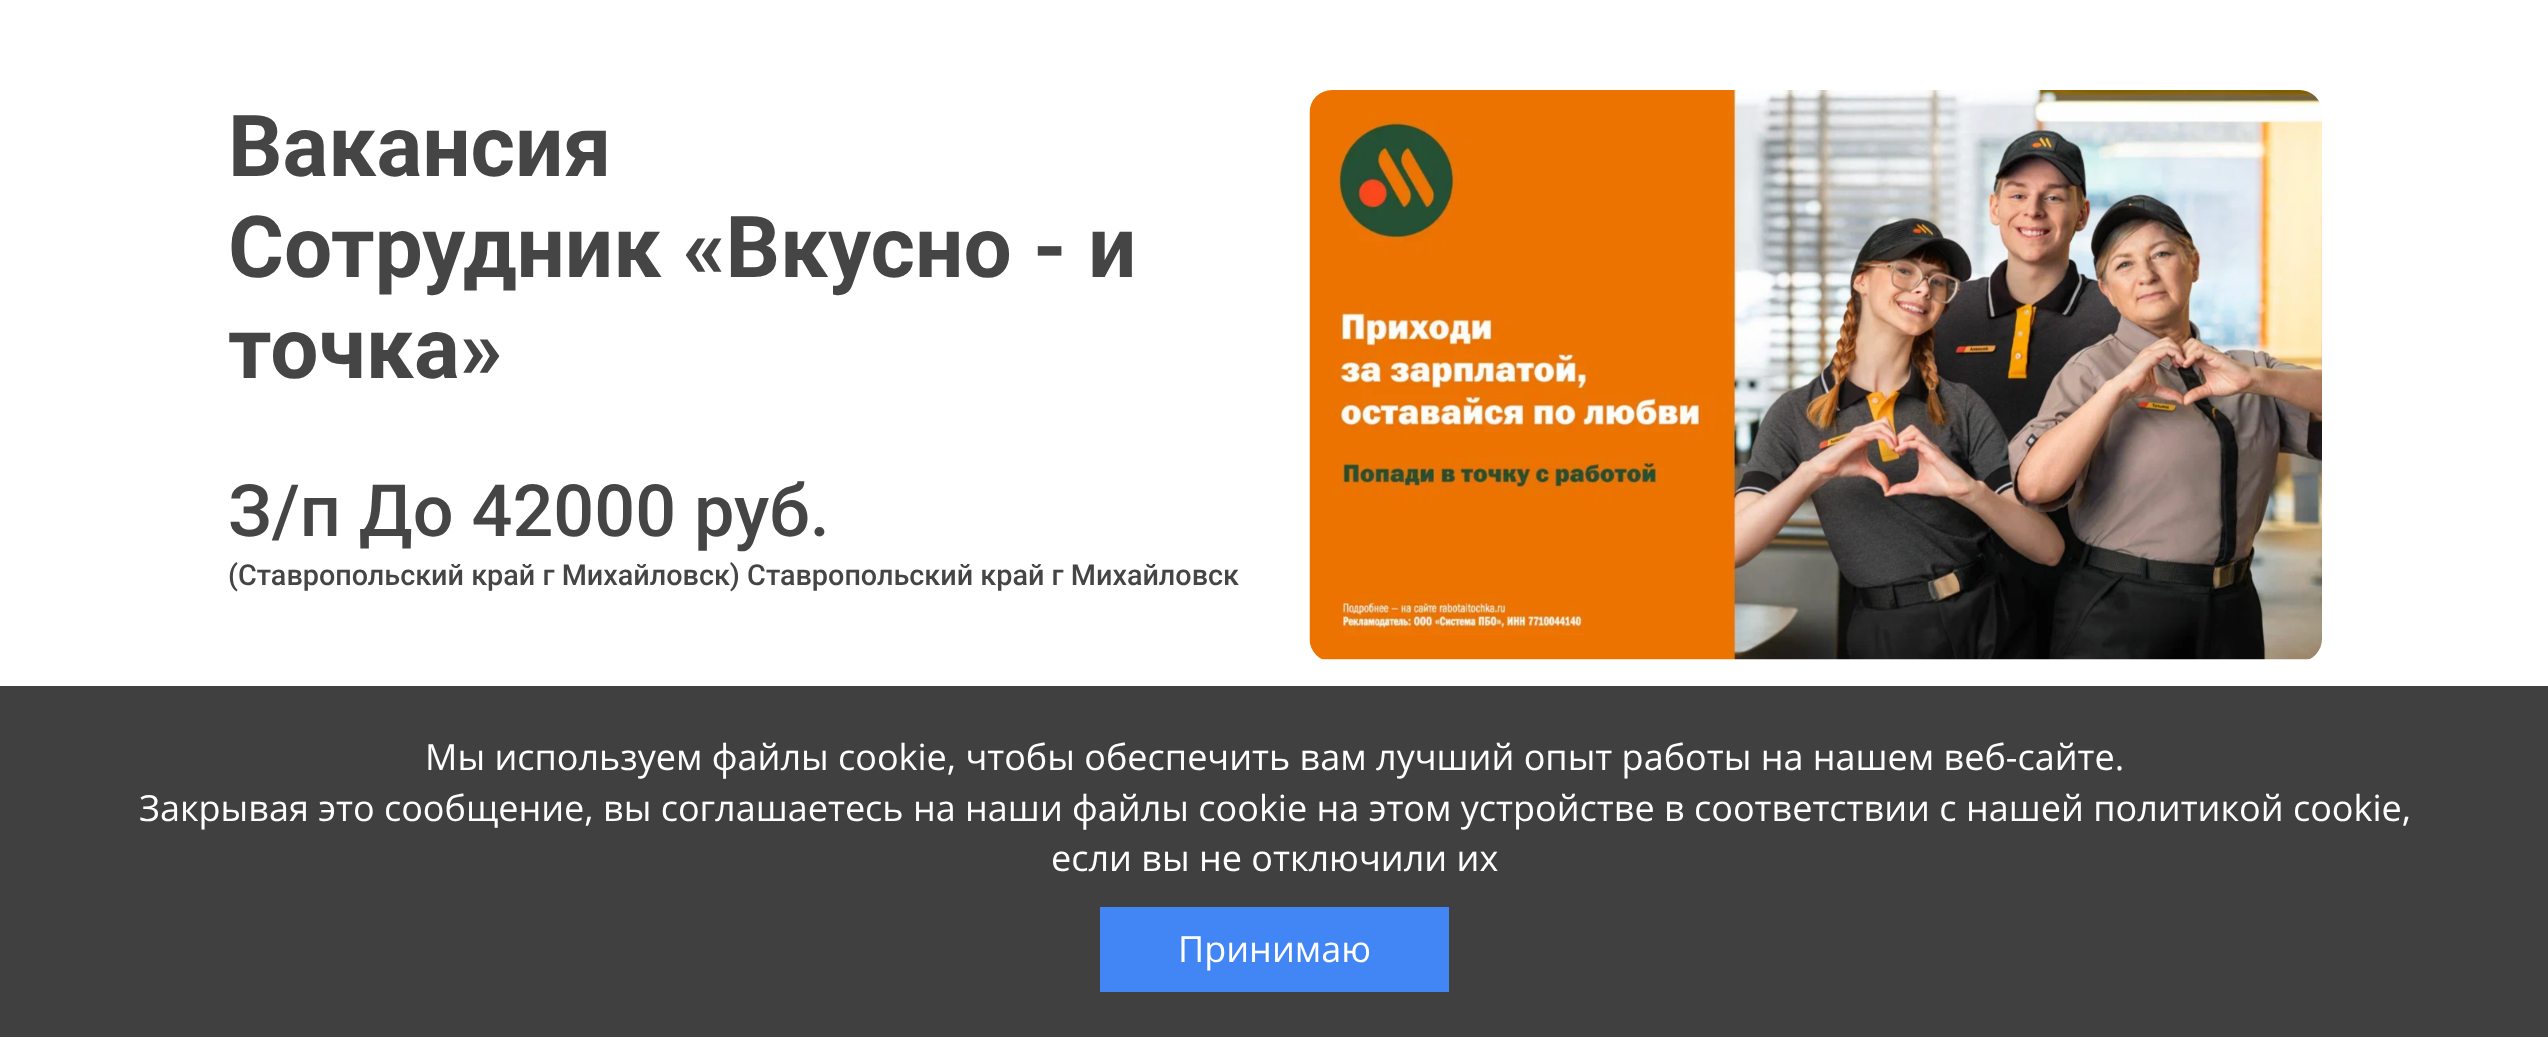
<svg xmlns="http://www.w3.org/2000/svg" width="2548" height="1037">
<rect width="100%" height="100%" fill="#fff"/>
<text x="228" y="176" style="font-family:Roboto;font-size:85.5px;font-weight:bold;fill:#454545">Вакансия</text>
<text x="228" y="277" style="font-family:Roboto;font-size:85.5px;font-weight:bold;fill:#454545">Сотрудник «Вкусно - и</text>
<text x="228" y="378" style="font-family:Roboto;font-size:85.5px;font-weight:bold;fill:#454545">точка»</text>
<text x="228" y="536" style="font-family:Roboto;font-size:72px;font-weight:500;fill:#454545">З/п До 42000 руб.</text>
<text x="228" y="585" style="font-family:Roboto;font-size:28.8px;font-weight:500;fill:#454545">(Ставропольский край г Михайловск) Ставропольский край г Михайловск</text>
<image x="1309" y="90" width="1013" height="570" href="media/1.png"/>
<rect y="686" width="2548" height="351" fill="#404040"/>
<text x="425" y="770" style="font-family:Open Sans;font-size:36px;fill:#fff">Мы используем файлы cookie, чтобы обеспечить вам лучший опыт работы на нашем веб-сайте.</text>
<text x="139" y="821" style="font-family:Open Sans;font-size:36px;fill:#fff">Закрывая это сообщение, вы соглашаетесь на наши файлы cookie на этом устройстве в соответствии с нашей политикой cookie,</text>
<text x="1051" y="871" style="font-family:Open Sans;font-size:36px;fill:#fff">если вы не отключили их</text>
<rect x="1100" y="907" width="349" height="85" fill="#4285f4"/>
<text x="1178" y="962" style="font-family:Open Sans;font-size:36px;fill:#fff">Принимаю</text>
</svg>
